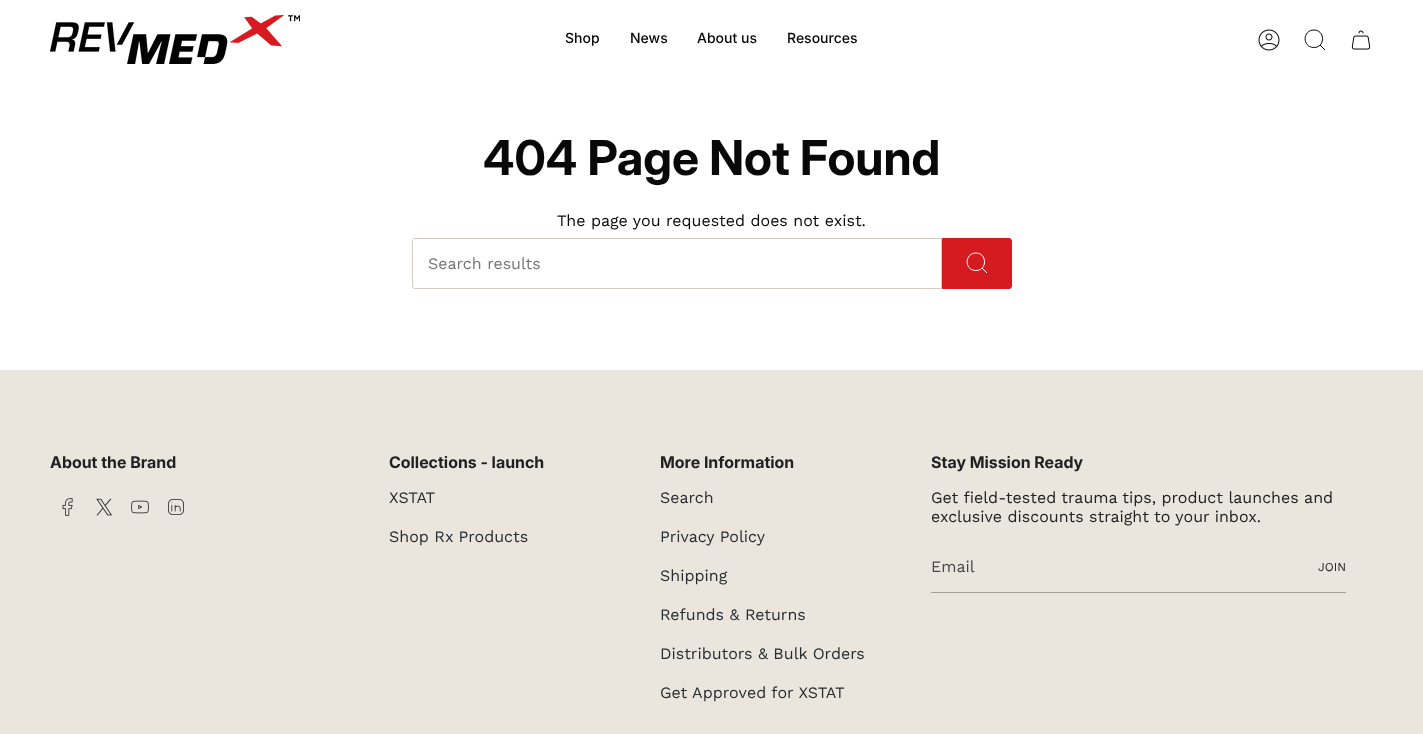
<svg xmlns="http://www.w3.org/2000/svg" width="1423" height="734">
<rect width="100%" height="100%" fill="#fff"/>
<image x="50" y="15" width="250" height="49" href="media/1.png"/>
<text x="565" y="43" style="font-family:Inter;font-size:14px;font-weight:500;fill:#080808">Shop</text>
<text x="630" y="43" style="font-family:Inter;font-size:14px;font-weight:500;fill:#080808">News</text>
<text x="697" y="43" style="font-family:Inter;font-size:14px;font-weight:500;fill:#080808">About us</text>
<text x="787" y="43" style="font-family:Inter;font-size:14px;font-weight:500;fill:#080808">Resources</text>
<image x="1258" y="29" width="22" height="22" href="media/2.png"/>
<path d="M1314 30c11.5 0 11.5 18-.5 17.5c-11.5-.5-11-17.5 .5-17.5zm6 15l5 5" fill="none" stroke="#080808"/>
<image x="1351" y="30" width="20" height="20" href="media/3.png"/>
<text x="483" y="175" style="font-family:'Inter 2';font-size:48px;font-weight:bold;fill:#080808">404 Page Not Found</text>
<text x="557" y="226" style="font-family:Work Sans;font-size:16px;fill:#080808">The page you requested does not exist.</text>
<path d="M415 238.5h526.5v50h-526.5c-1.5 0-2.5-1-2.5-2.5v-45c0-1.5 1-2.5 2.5-2.5z" fill="none" stroke="#d1cdc4"/>
<text x="428" y="269" style="font-family:Work Sans;font-size:16px;fill:#757575">Search results</text>
<path d="M942.5 238.5h66.5c1.5 0 2.5 1 2.5 2.5v45c0 1.5-1 2.5-2.5 2.5h-66.5z" fill="#d51b1f" stroke="#d51b1f"/>
<path d="M976 253c11.5 0 11.5 18-.5 17.5c-11.5-.5-11-17.5 .5-17.5zm6 15l5 5" fill="none" stroke="#fff"/>
<rect y="370" width="1423" height="364" fill="#eae6dd"/>
<text x="50" y="468" style="font-family:Inter;font-size:16px;font-weight:bold;fill:#212121">About the Brand</text>
<image x="62" y="498" width="11" height="18" href="media/4.png"/>
<image x="96" y="498" width="16" height="18" href="media/5.png"/>
<image x="131" y="500" width="18" height="14" href="media/6.png"/>
<image x="168" y="499" width="16" height="16" href="media/7.png"/>
<text x="389" y="468" style="font-family:Inter;font-size:16px;font-weight:bold;fill:#212121">Collections - launch</text>
<text x="389" y="503" style="font-family:Work Sans;font-size:16px;fill:#282c2e">XSTAT</text>
<text x="389" y="542" style="font-family:Work Sans;font-size:16px;fill:#282c2e">Shop Rx Products</text>
<text x="660" y="468" style="font-family:Inter;font-size:16px;font-weight:bold;fill:#212121">More Information</text>
<text x="660" y="503" style="font-family:Work Sans;font-size:16px;fill:#282c2e">Search</text>
<text x="660" y="542" style="font-family:Work Sans;font-size:16px;fill:#282c2e">Privacy Policy</text>
<text x="660" y="581" style="font-family:Work Sans;font-size:16px;fill:#282c2e">Shipping</text>
<text x="660" y="620" style="font-family:Work Sans;font-size:16px;fill:#282c2e">Refunds &amp; Returns</text>
<text x="660" y="659" style="font-family:Work Sans;font-size:16px;fill:#282c2e">Distributors &amp; Bulk Orders</text>
<text x="660" y="698" style="font-family:Work Sans;font-size:16px;fill:#282c2e">Get Approved for XSTAT</text>
<text x="931" y="468" style="font-family:Inter;font-size:16px;font-weight:bold;fill:#212121">Stay Mission Ready</text>
<text x="931" y="503" style="font-family:Work Sans;font-size:16px;fill:#212121">Get field-tested trauma tips, product launches and</text>
<text x="931" y="522" style="font-family:Work Sans;font-size:16px;fill:#212121">exclusive discounts straight to your inbox.</text>
<rect x="931" y="592" width="415" height="1" fill="#a4a19b"/>
<text x="931" y="572" style="font-family:Work Sans;font-size:16px;fill:#494847">Email</text>
<text x="1318" y="571" style="font-family:Work Sans;font-size:12px;fill:#212121">JOIN</text>
</svg>
